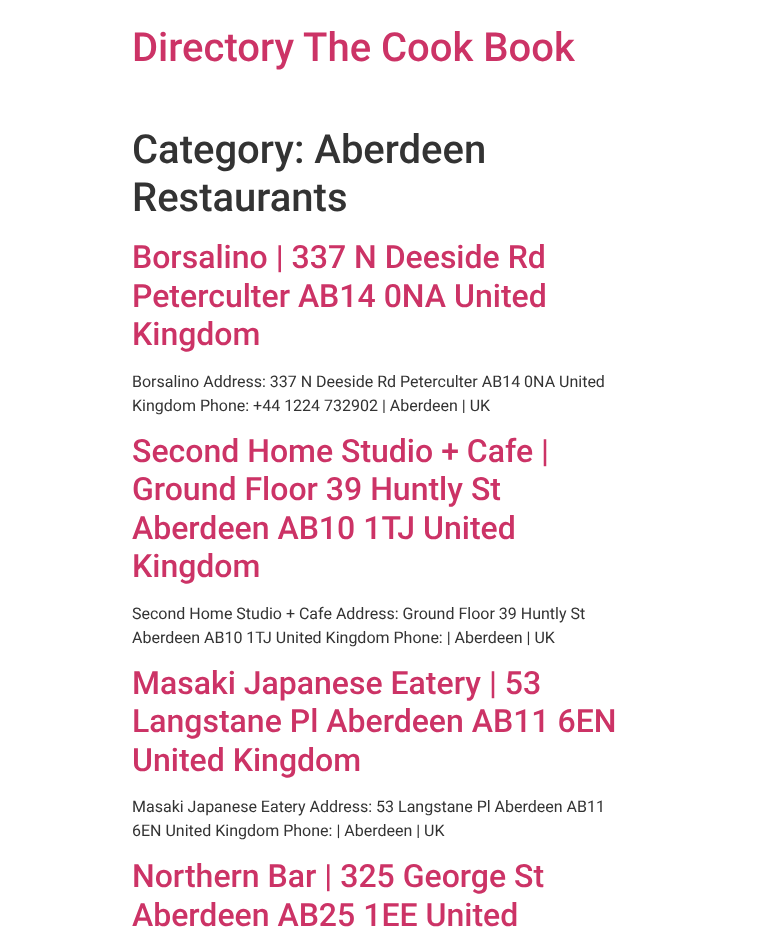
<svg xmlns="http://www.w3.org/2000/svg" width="764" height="929">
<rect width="100%" height="100%" fill="#fff"/>
<text x="132" y="61" style="font-family:Roboto;font-size:40px;font-weight:500;fill:#c36">Directory The Cook Book</text>
<text x="132" y="163" style="font-family:Roboto;font-size:40px;font-weight:500;fill:#333">Category: Aberdeen</text>
<text x="132" y="211" style="font-family:Roboto;font-size:40px;font-weight:500;fill:#333">Restaurants</text>
<text x="132" y="268" style="font-family:Roboto;font-size:32px;font-weight:500;fill:#c36">Borsalino | 337 N Deeside Rd</text>
<text x="132" y="307" style="font-family:Roboto;font-size:32px;font-weight:500;fill:#c36">Peterculter AB14 0NA United</text>
<text x="132" y="345" style="font-family:Roboto;font-size:32px;font-weight:500;fill:#c36">Kingdom</text>
<text x="132" y="387" style="font-family:Roboto;font-size:16px;fill:#333">Borsalino Address: 337 N Deeside Rd Peterculter AB14 0NA United</text>
<text x="132" y="411" style="font-family:Roboto;font-size:16px;fill:#333">Kingdom Phone: +44 1224 732902 | Aberdeen | UK</text>
<text x="132" y="462" style="font-family:Roboto;font-size:32px;font-weight:500;fill:#c36">Second Home Studio + Cafe |</text>
<text x="132" y="500" style="font-family:Roboto;font-size:32px;font-weight:500;fill:#c36">Ground Floor 39 Huntly St</text>
<text x="132" y="539" style="font-family:Roboto;font-size:32px;font-weight:500;fill:#c36">Aberdeen AB10 1TJ United</text>
<text x="132" y="577" style="font-family:Roboto;font-size:32px;font-weight:500;fill:#c36">Kingdom</text>
<text x="132" y="619" style="font-family:Roboto;font-size:16px;fill:#333">Second Home Studio + Cafe Address: Ground Floor 39 Huntly St</text>
<text x="132" y="643" style="font-family:Roboto;font-size:16px;fill:#333">Aberdeen AB10 1TJ United Kingdom Phone: | Aberdeen | UK</text>
<text x="132" y="694" style="font-family:Roboto;font-size:32px;font-weight:500;fill:#c36">Masaki Japanese Eatery | 53</text>
<text x="132" y="732" style="font-family:Roboto;font-size:32px;font-weight:500;fill:#c36">Langstane Pl Aberdeen AB11 6EN</text>
<text x="132" y="771" style="font-family:Roboto;font-size:32px;font-weight:500;fill:#c36">United Kingdom</text>
<text x="132" y="812" style="font-family:Roboto;font-size:16px;fill:#333">Masaki Japanese Eatery Address: 53 Langstane Pl Aberdeen AB11</text>
<text x="132" y="836" style="font-family:Roboto;font-size:16px;fill:#333">6EN United Kingdom Phone: | Aberdeen | UK</text>
<text x="132" y="887" style="font-family:Roboto;font-size:32px;font-weight:500;fill:#c36">Northern Bar | 325 George St</text>
<text x="132" y="926" style="font-family:Roboto;font-size:32px;font-weight:500;fill:#c36">Aberdeen AB25 1EE United</text>
</svg>
